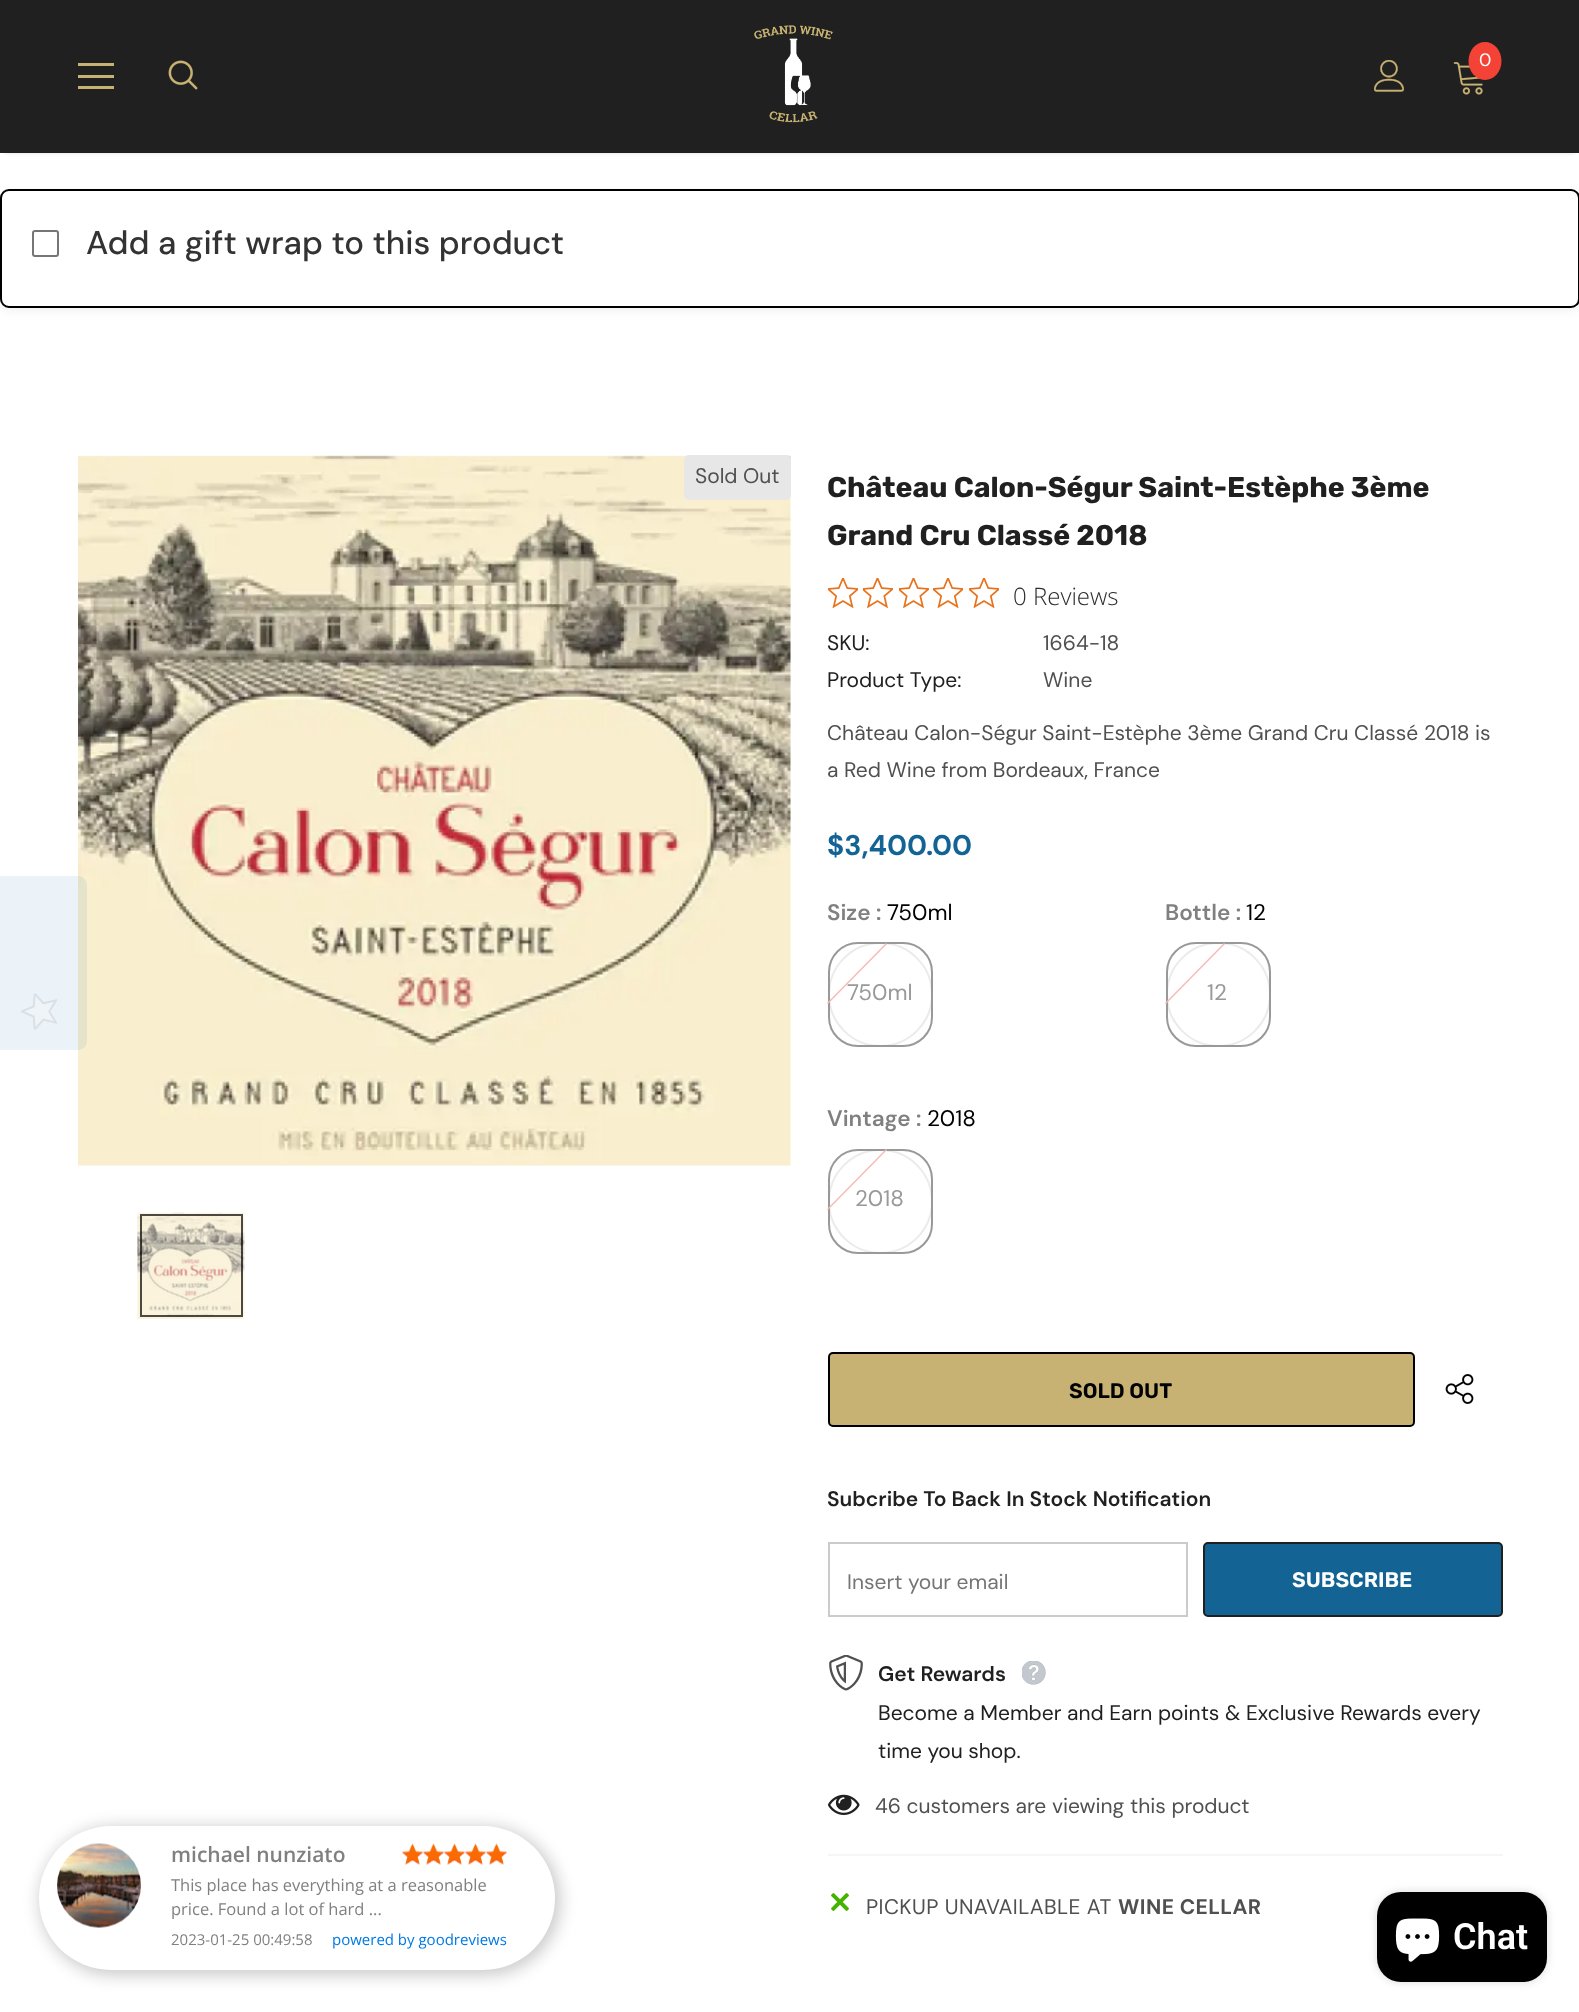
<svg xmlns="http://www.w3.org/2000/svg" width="1579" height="2012">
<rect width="100%" height="100%" fill="#fff"/>
<rect x="5" y="9" width="1570" height="144" fill="#0000001f" filter="blur(2px)"/>
<rect width="1579" height="153" fill="#202020"/>
<rect x="78" y="63" width="36" height="3" fill="#c8b273"/>
<rect x="78" y="75" width="36" height="3" fill="#c8b273"/>
<rect x="78" y="86" width="36" height="3" fill="#c8b273"/>
<image x="168" y="60" width="30" height="30" href="media/1.png"/>
<image x="754" y="25" width="79" height="98" href="media/2.png"/>
<image x="1374" y="60" width="30" height="32" href="media/3.png"/>
<image x="1453" y="62" width="30" height="33" href="media/4.png"/>
<ellipse cx="1485" cy="61" rx="16.5" ry="19" fill="#f44336"/>
<text x="1479" y="66" style="font-family:DM Sans;font-size:18px;fill:#fff">0</text>
<image x="78" y="455" width="713" height="711" href="media/6.png"/>
<path d="M0 1050v-174h78c5 0 9 4 9 9v156c0 5-4 9-9 9z" fill="#498cbc1a"/>
<image x="21" y="993" width="36" height="37" href="media/5.png"/>
<rect y="192" width="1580" height="119" rx="9" fill="#0000000d" filter="blur(4.5px)"/>
<rect x="1" y="190" width="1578" height="117" rx="8" fill="#fff" stroke="#000" stroke-width="2"/>
<rect x="33" y="231" width="25" height="25" rx="2" fill="none" stroke="#767676" stroke-width="2"/>
<text x="86" y="254" style="font-family:DM Sans;font-size:33px;font-weight:500;fill:#333">Add a gift wrap to this product</text>
<rect x="684" y="455" width="107" height="45" rx="5" fill="#e7e7e7"/>
<text x="695" y="483" style="font-family:DM Sans;font-size:21px;fill:#505050">Sold Out</text>
<image x="137" y="1212" width="108" height="107" href="media/7.png"/>
<rect x="141" y="1215" width="101" height="101" fill="none" stroke="#000000b3" stroke-width="2"/>
<text x="827" y="497" style="font-family:Rubik;font-size:28.5px;font-weight:bold;fill:#202020">Château Calon-Ségur Saint-Estèphe 3ème</text>
<text x="827" y="545" style="font-family:Rubik;font-size:28.5px;font-weight:bold;fill:#202020">Grand Cru Classé 2018</text>
<image x="828" y="578" width="30" height="30" href="media/8.png"/>
<image x="863" y="578" width="30" height="30" href="media/9.png"/>
<image x="899" y="578" width="30" height="30" href="media/9.png"/>
<image x="933" y="578" width="30" height="30" href="media/8.png"/>
<image x="969" y="578" width="30" height="30" href="media/8.png"/>
<text x="1013" y="605" style="font-family:Open Sans;font-size:24px;font-weight:300;fill:#2c2c2c">0 Reviews</text>
<text x="827" y="650" style="font-family:DM Sans;font-size:21px;fill:#202020">SKU:</text>
<text x="1043" y="650" style="font-family:DM Sans;font-size:21px;fill:#505050">1664-18</text>
<text x="827" y="687" style="font-family:DM Sans;font-size:21px;fill:#202020">Product Type:</text>
<text x="1043" y="687" style="font-family:DM Sans;font-size:21px;fill:#505050">Wine</text>
<text x="827" y="740" style="font-family:DM Sans;font-size:21px;fill:#505050">Château Calon-Ségur Saint-Estèphe 3ème Grand Cru Classé 2018 is</text>
<text x="827" y="777" style="font-family:DM Sans;font-size:21px;fill:#505050">a Red Wine from Bordeaux, France</text>
<text x="827" y="855" style="font-family:DM Sans;font-size:28.5px;font-weight:bold;fill:#136495">$3,400.00</text>
<text x="827" y="920" style="font-family:DM Sans;font-size:22.5px;font-weight:600;fill:#808080">Size :</text>
<text x="887" y="920" style="font-family:DM Sans;font-size:22.5px;fill:#000">750ml</text>
<circle cx="880.5" cy="994.5" r="51.5" fill="none" stroke="#ebebeb" stroke-width="2"/>
<rect x="829" y="943" width="103" height="103" rx="29" fill="none" stroke="#999" stroke-width="2"/>
<text x="847" y="1000" style="font-family:DM Sans;font-size:22.5px;fill:#999">750ml</text>
<path d="M827 1003l59-60l1 1l-59 60z" fill="#f6bab3"/>
<text x="1165" y="920" style="font-family:DM Sans;font-size:22.5px;font-weight:600;fill:#808080">Bottle :</text>
<text x="1246" y="920" style="font-family:DM Sans;font-size:22.5px;fill:#000">12</text>
<circle cx="1218.5" cy="994.5" r="51.5" fill="none" stroke="#ebebeb" stroke-width="2"/>
<rect x="1167" y="943" width="103" height="103" rx="29" fill="none" stroke="#999" stroke-width="2"/>
<text x="1207" y="1000" style="font-family:DM Sans;font-size:22.5px;fill:#999">12</text>
<path d="M1165 1003l59-60l1 1l-59 60z" fill="#f6bab3"/>
<text x="827" y="1126" style="font-family:DM Sans;font-size:22.5px;font-weight:600;fill:#808080">Vintage :</text>
<text x="927" y="1126" style="font-family:DM Sans;font-size:22.5px;fill:#000">2018</text>
<circle cx="880.5" cy="1201.5" r="51.5" fill="none" stroke="#ebebeb" stroke-width="2"/>
<rect x="829" y="1150" width="103" height="103" rx="29" fill="none" stroke="#999" stroke-width="2"/>
<text x="855" y="1206" style="font-family:DM Sans;font-size:22.5px;fill:#999">2018</text>
<path d="M827 1209l59-60l1 1l-59 60z" fill="#f6bab3"/>
<rect x="829" y="1353" width="585" height="73" rx="4" fill="#c8b273" stroke="#000" stroke-width="2"/>
<text x="1069" y="1398" style="font-family:Rubik;font-size:21px;font-weight:600;fill:#000">SOLD OUT</text>
<image x="1445" y="1374" width="29" height="30" href="media/10.png"/>
<text x="827" y="1506" style="font-family:DM Sans;font-size:21px;font-weight:600;fill:#202020">Subcribe To Back In Stock Notification</text>
<rect x="829" y="1543" width="358" height="73" fill="none" stroke="#cbcbcb" stroke-width="2"/>
<text x="847" y="1589" style="font-family:DM Sans;font-size:21px;fill:#757575">Insert your email</text>
<rect x="1204" y="1543" width="298" height="73" rx="4" fill="#136495" stroke="#202020" stroke-width="2"/>
<text x="1292" y="1587" style="font-family:Rubik;font-size:21px;font-weight:600;fill:#fff">SUBSCRIBE</text>
<image x="829" y="1655" width="34" height="36" href="media/11.png"/>
<text x="878" y="1681" style="font-family:DM Sans;font-size:21px;font-weight:600;fill:#202020">Get Rewards</text>
<image x="1022" y="1661" width="24" height="24" href="media/12.png"/>
<text x="878" y="1720" style="font-family:DM Sans;font-size:21px;fill:#202020">Become a Member and Earn points &amp; Exclusive Rewards every</text>
<text x="878" y="1758" style="font-family:DM Sans;font-size:21px;fill:#202020">time you shop.</text>
<image x="828" y="1794" width="32" height="21" href="media/13.png"/>
<text x="875" y="1813" style="font-family:DM Sans;font-size:21px;fill:#505050">46 customers are viewing this product</text>
<rect x="828" y="1854" width="675" height="2" fill="#f6f6f6"/>
<image x="831" y="1893" width="18" height="18" href="media/14.png"/>
<text x="866" y="1914" style="font-family:DM Sans;font-size:21px;letter-spacing:0.4px;fill:#505050">PICKUP UNAVAILABLE AT</text>
<text x="1118" y="1914" style="font-family:DM Sans;font-size:21px;font-weight:bold;letter-spacing:0.4px;fill:#505050">WINE CELLAR</text>
<rect x="39" y="1826" width="522" height="150" rx="75" fill="#0b0a0a33" filter="blur(7.5px)"/>
<rect x="39" y="1826" width="516" height="144" rx="72" fill="#fff"/>
<image x="57" y="1843" width="84" height="85" href="media/15.png"/>
<text x="171" y="1862" style="font-family:Open Sans;font-size:21px;font-weight:600;fill:#808080">michael nunziato</text>
<image x="402" y="1843" width="21" height="22" href="media/16.png"/>
<image x="423" y="1843" width="21" height="22" href="media/16.png"/>
<image x="444" y="1843" width="21" height="22" href="media/16.png"/>
<image x="465" y="1843" width="21" height="22" href="media/16.png"/>
<image x="486" y="1843" width="21" height="22" href="media/16.png"/>
<text x="171" y="1891" style="font-family:Open Sans;font-size:16.5px;fill:#808080">This place has everything at a reasonable</text>
<text x="171" y="1915" style="font-family:Open Sans;font-size:16.5px;fill:#808080">price. Found a lot of hard ...</text>
<text x="171" y="1945" style="font-family:Open Sans;font-size:15px;fill:#808080">2023-01-25 00:49:58</text>
<text x="332" y="1945" style="font-family:Open Sans;font-size:15px;fill:#0079e4">powered by goodreviews</text>
<rect x="1377" y="1892" width="170" height="90" rx="24" fill="#00000026" filter="blur(4px)"/>
<rect x="1377" y="1892" width="170" height="90" rx="24" fill="#000"/>
<image x="1395" y="1918" width="45" height="44" href="media/17.png"/>
<text x="1453" y="1949" style="font-family:Roboto;font-size:36px;font-weight:600;fill:#fff">Chat</text>
</svg>
